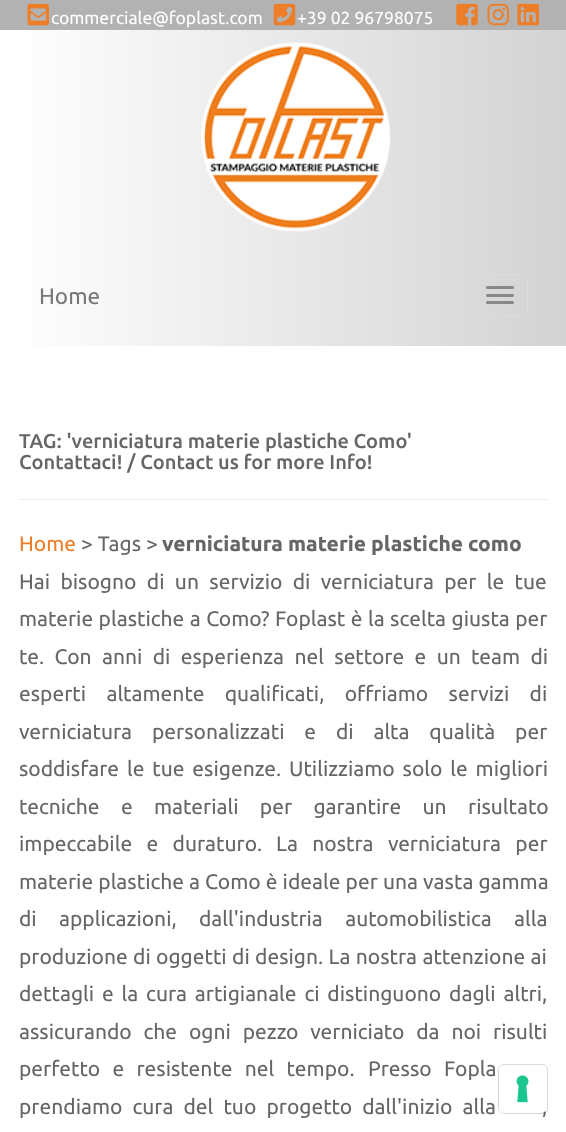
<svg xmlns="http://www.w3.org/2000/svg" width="566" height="1132">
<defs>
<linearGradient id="g1" gradientUnits="userSpaceOnUse" x1="0" y1="188" x2="566" y2="188"><stop offset="0" stop-color="#fff"/><stop offset="1" stop-color="#d3d3d3"/></linearGradient>
</defs>
<rect width="100%" height="100%" fill="#fff"/>
<rect width="566" height="30" fill="#b2b2b2"/>
<image x="27" y="3" width="22" height="23" href="media/1.png"/>
<text x="51" y="24" style="font-family:Ubuntu;font-size:17.5px;fill:#fff">commerciale@foplast.com</text>
<image x="273" y="3" width="23" height="23" href="media/2.png"/>
<text x="297" y="24" style="font-family:Ubuntu;font-size:17.5px;fill:#fff">+39 02 96798075</text>
<image x="456" y="3" width="22" height="23" href="media/3.png"/>
<image x="487" y="3" width="22" height="23" href="media/4.png"/>
<image x="517" y="3" width="22" height="23" href="media/5.png"/>
<rect x="32" y="30" width="534" height="316" fill="url(#g1)"/>
<image x="201" y="42" width="189" height="190" href="media/6.png"/>
<text x="39" y="304" style="font-family:Ubuntu;font-size:22.5px;fill:#777">Home</text>
<rect x="473.5" y="274.5" width="54" height="41" rx="4.5" fill="none" stroke="#ddd"/>
<rect x="486" y="286" width="28" height="3" rx="1.5" fill="#888"/>
<rect x="486" y="294" width="28" height="3" rx="1.5" fill="#888"/>
<rect x="486" y="301" width="28" height="3" rx="1.5" fill="#888"/>
<text x="19" y="448" style="font-family:Ubuntu;font-size:20px;font-weight:500;fill:#666">TAG: 'verniciatura materie plastiche Como'</text>
<text x="19" y="469" style="font-family:Ubuntu;font-size:20px;font-weight:500;fill:#666">Contattaci! / Contact us for more Info!</text>
<rect x="19" y="499" width="529" height="1" fill="#eee"/>
<text x="19" y="551" style="font-family:Ubuntu;font-size:21px;fill:#ed7d27">Home</text>
<text x="81" y="551" style="font-family:Ubuntu;font-size:21px;fill:#666">&gt; Tags &gt;</text>
<text x="162" y="551" style="font-family:Ubuntu;font-size:21px;font-weight:bold;fill:#666">verniciatura materie plastiche como</text>
<text x="19" y="589" word-spacing="5.5" style="font-family:Ubuntu;font-size:21px;fill:#666">Hai bisogno di un servizio di verniciatura per le tue</text>
<text x="19" y="626" word-spacing="0.6" style="font-family:Ubuntu;font-size:21px;fill:#666">materie plastiche a Como? Foplast è la scelta giusta per</text>
<text x="19" y="664" word-spacing="5.5" style="font-family:Ubuntu;font-size:21px;fill:#666">te. Con anni di esperienza nel settore e un team di</text>
<text x="19" y="701" word-spacing="15.5" style="font-family:Ubuntu;font-size:21px;fill:#666">esperti altamente qualificati, offriamo servizi di</text>
<text x="19" y="739" word-spacing="15" style="font-family:Ubuntu;font-size:21px;fill:#666">verniciatura personalizzati e di alta qualità per</text>
<text x="19" y="776" word-spacing="3" style="font-family:Ubuntu;font-size:21px;fill:#666">soddisfare le tue esigenze. Utilizziamo solo le migliori</text>
<text x="19" y="814" word-spacing="16.5" style="font-family:Ubuntu;font-size:21px;fill:#666">tecniche e materiali per garantire un risultato</text>
<text x="19" y="851" word-spacing="9.5" style="font-family:Ubuntu;font-size:21px;fill:#666">impeccabile e duraturo.</text>
<text x="276" y="851" word-spacing="9.5" style="font-family:Ubuntu;font-size:21px;fill:#666">La nostra verniciatura per</text>
<text x="19" y="889" word-spacing="0.25" style="font-family:Ubuntu;font-size:21px;fill:#666">materie plastiche a Como è ideale per una vasta gamma</text>
<text x="19" y="926" word-spacing="17.5" style="font-family:Ubuntu;font-size:21px;fill:#666">di applicazioni, dall'industria automobilistica alla</text>
<text x="19" y="964" word-spacing="0.5" style="font-family:Ubuntu;font-size:21px;fill:#666">produzione di oggetti di design. La nostra attenzione ai</text>
<text x="19" y="1001" word-spacing="3" style="font-family:Ubuntu;font-size:21px;fill:#666">dettagli e la cura artigianale ci distinguono dagli altri,</text>
<text x="19" y="1039" word-spacing="7" style="font-family:Ubuntu;font-size:21px;fill:#666">assicurando che ogni pezzo verniciato da noi risulti</text>
<text x="19" y="1076" word-spacing="7.5" style="font-family:Ubuntu;font-size:21px;fill:#666">perfetto e resistente nel tempo.</text>
<text x="368" y="1076" word-spacing="7.5" style="font-family:Ubuntu;font-size:21px;fill:#666">Presso Fopla</text>
<text x="19" y="1114" word-spacing="5.25" style="font-family:Ubuntu;font-size:21px;fill:#666">prendiamo cura del tuo progetto dall'inizio alla</text>
<text x="542" y="1114" word-spacing="5.25" style="font-family:Ubuntu;font-size:21px;fill:#666">,</text>
<rect x="498.5" y="1064.5" width="49" height="49" rx="5.5" fill="none" stroke="#00000026"/>
<rect x="499" y="1065" width="47" height="48" rx="5" fill="#fff"/>
<image x="516" y="1075" width="13" height="28" href="media/7.png"/>
</svg>
